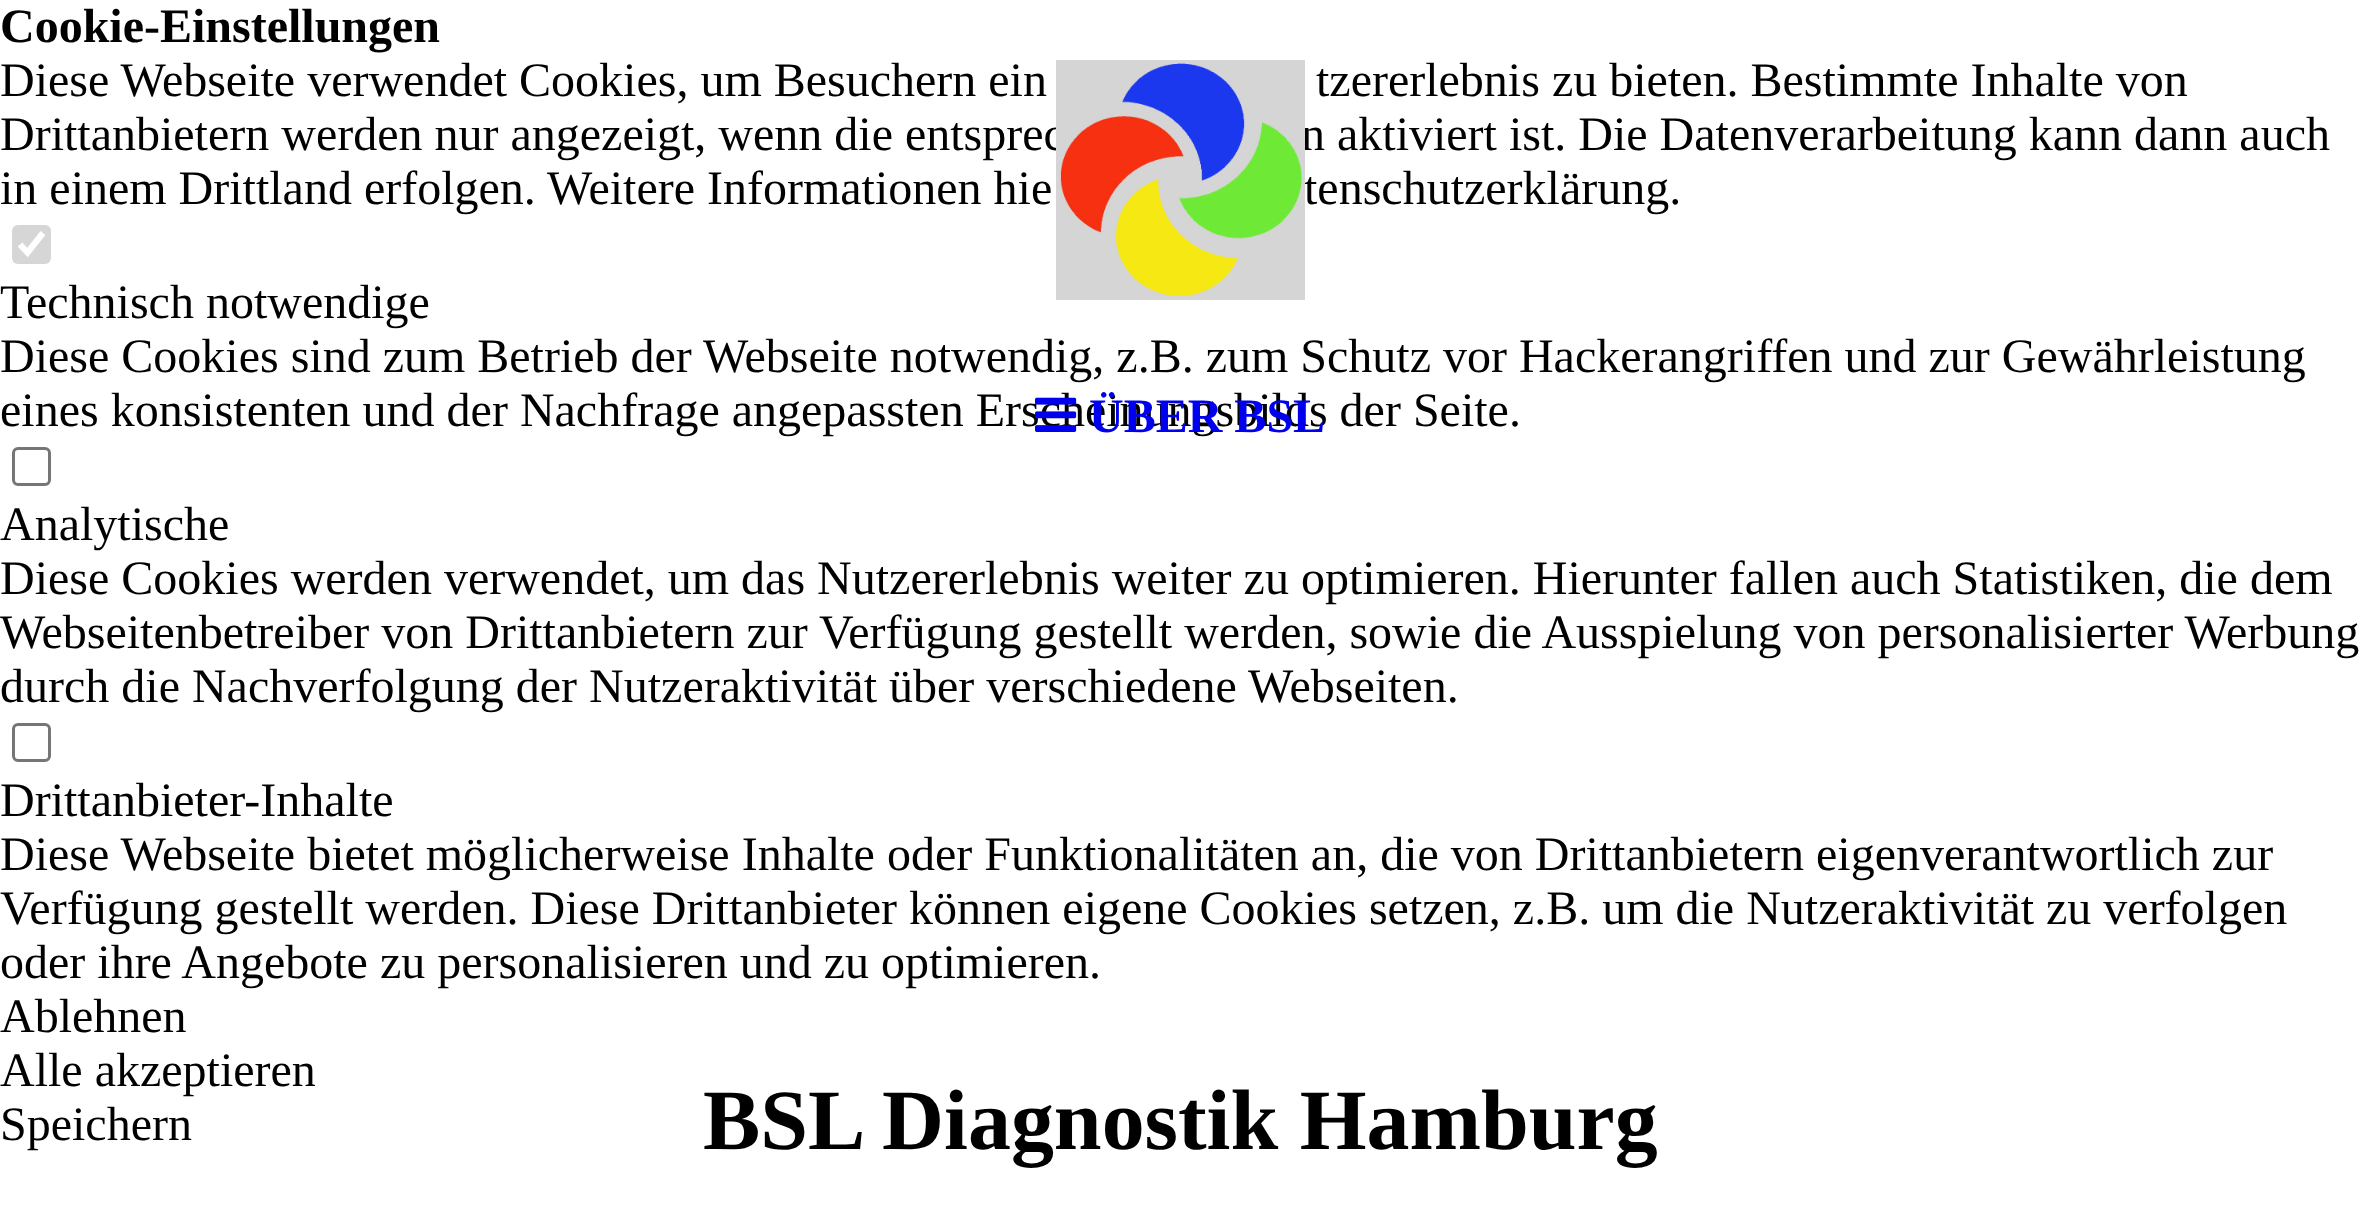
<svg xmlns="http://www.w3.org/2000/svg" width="2360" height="1227">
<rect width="100%" height="100%" fill="#fff"/>
<text x="0" y="42" style="font-family:Liberation Serif;font-size:48px;font-weight:bold;fill:#000">Cookie-Einstellungen</text>
<text x="0" y="96" style="font-family:Liberation Serif;font-size:48px;fill:#000">Diese Webseite verwendet Cookies, um Besuchern ein</text>
<text x="1316" y="96" style="font-family:Liberation Serif;font-size:48px;fill:#000">tzererlebnis zu bieten. Bestimmte Inhalte von</text>
<text x="0" y="150" style="font-family:Liberation Serif;font-size:48px;fill:#000">Drittanbietern werden nur angezeigt, wenn die entsprec</text>
<text x="1301" y="150" style="font-family:Liberation Serif;font-size:48px;fill:#000">n aktiviert ist. Die Datenverarbeitung kann dann auch</text>
<text x="0" y="204" style="font-family:Liberation Serif;font-size:48px;fill:#000">in einem Drittland erfolgen. Weitere Informationen hie</text>
<text x="1304" y="204" style="font-family:Liberation Serif;font-size:48px;fill:#000">tenschutzerklärung.</text>
<rect x="12" y="225" width="39" height="39" rx="6" fill="#d6d6d6"/>
<path d="M20 244.5l7.5 8l15.5-19.5" fill="none" stroke="#fff" stroke-width="6.2"/>
<text x="0" y="318" style="font-family:Liberation Serif;font-size:48px;fill:#000">Technisch notwendige</text>
<text x="0" y="372" style="font-family:Liberation Serif;font-size:48px;fill:#000">Diese Cookies sind zum Betrieb der Webseite notwendig, z.B. zum Schutz vor Hackerangriffen und zur Gewährleistung</text>
<text x="0" y="426" style="font-family:Liberation Serif;font-size:48px;fill:#000">eines konsistenten und der Nachfrage angepassten Erscheinungsbilds der Seite.</text>
<rect x="13.5" y="448.5" width="36" height="36" rx="4.5" fill="none" stroke="#767676" stroke-width="3"/>
<text x="0" y="540" style="font-family:Liberation Serif;font-size:48px;fill:#000">Analytische</text>
<text x="0" y="594" style="font-family:Liberation Serif;font-size:48px;fill:#000">Diese Cookies werden verwendet, um das Nutzererlebnis weiter zu optimieren. Hierunter fallen auch Statistiken, die dem</text>
<text x="0" y="648" style="font-family:Liberation Serif;font-size:48px;fill:#000">Webseitenbetreiber von Drittanbietern zur Verfügung gestellt werden, sowie die Ausspielung von personalisierter Werbung</text>
<text x="0" y="702" style="font-family:Liberation Serif;font-size:48px;fill:#000">durch die Nachverfolgung der Nutzeraktivität über verschiedene Webseiten.</text>
<rect x="13.5" y="724.5" width="36" height="36" rx="4.5" fill="none" stroke="#767676" stroke-width="3"/>
<text x="0" y="816" style="font-family:Liberation Serif;font-size:48px;fill:#000">Drittanbieter-Inhalte</text>
<text x="0" y="870" style="font-family:Liberation Serif;font-size:48px;fill:#000">Diese Webseite bietet möglicherweise Inhalte oder Funktionalitäten an, die von Drittanbietern eigenverantwortlich zur</text>
<text x="0" y="924" style="font-family:Liberation Serif;font-size:48px;fill:#000">Verfügung gestellt werden. Diese Drittanbieter können eigene Cookies setzen, z.B. um die Nutzeraktivität zu verfolgen</text>
<text x="0" y="978" style="font-family:Liberation Serif;font-size:48px;fill:#000">oder ihre Angebote zu personalisieren und zu optimieren.</text>
<text x="0" y="1032" style="font-family:Liberation Serif;font-size:48px;fill:#000">Ablehnen</text>
<text x="0" y="1086" style="font-family:Liberation Serif;font-size:48px;fill:#000">Alle akzeptieren</text>
<text x="0" y="1140" style="font-family:Liberation Serif;font-size:48px;fill:#000">Speichern</text>
<image x="1056" y="60" width="249" height="240" href="media/1.png"/>
<image x="1035" y="397" width="42" height="35" href="media/2.png"/>
<text x="1089" y="432" style="font-family:Liberation Serif;font-size:48px;font-weight:bold;fill:#00e">ÜBER BSL</text>
<text x="703" y="1149" style="font-family:Liberation Serif;font-size:85.9px;font-weight:bold;fill:#000">BSL Diagnostik Hamburg</text>
</svg>
